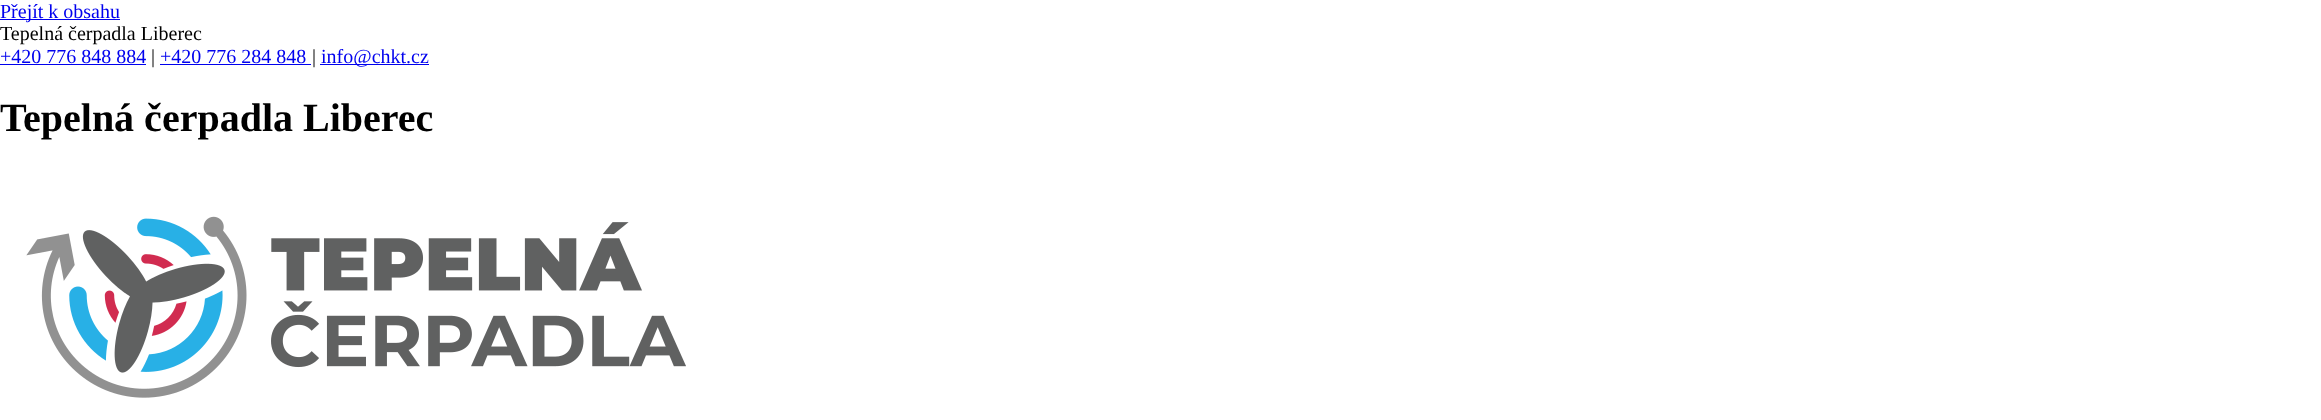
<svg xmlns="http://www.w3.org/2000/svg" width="2321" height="420">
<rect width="100%" height="100%" fill="#fff"/>
<rect y="19" width="120" height="1" fill="#00e"/>
<text x="0" y="18" style="font-family:Liberation Serif;font-size:20px;fill:#00e">Přejít k obsahu</text>
<text x="0" y="40" style="font-family:Liberation Serif;font-size:20px;fill:#000">Tepelná čerpadla Liberec</text>
<text x="0" y="63" style="font-family:Liberation Serif;font-size:20px;fill:#00e">+420 776 848 884</text>
<rect y="64" width="146" height="1" fill="#00e"/>
<text x="151" y="63" style="font-family:Liberation Serif;font-size:20px;fill:#000">|</text>
<text x="160" y="63" style="font-family:Liberation Serif;font-size:20px;fill:#00e">+420 776 284 848</text>
<text x="312" y="63" style="font-family:Liberation Serif;font-size:20px;fill:#000">|</text>
<rect x="160" y="64" width="151" height="1" fill="#00e"/>
<rect x="320" y="64" width="109" height="1" fill="#00e"/>
<text x="321" y="63" style="font-family:Liberation Serif;font-size:20px;fill:#00e">info@chkt.cz</text>
<text x="0" y="131" style="font-family:Liberation Serif;font-size:40px;font-weight:bold;fill:#000">Tepelná čerpadla Liberec</text>
<image x="26" y="216" width="660" height="182" href="media/1.png"/>
</svg>
